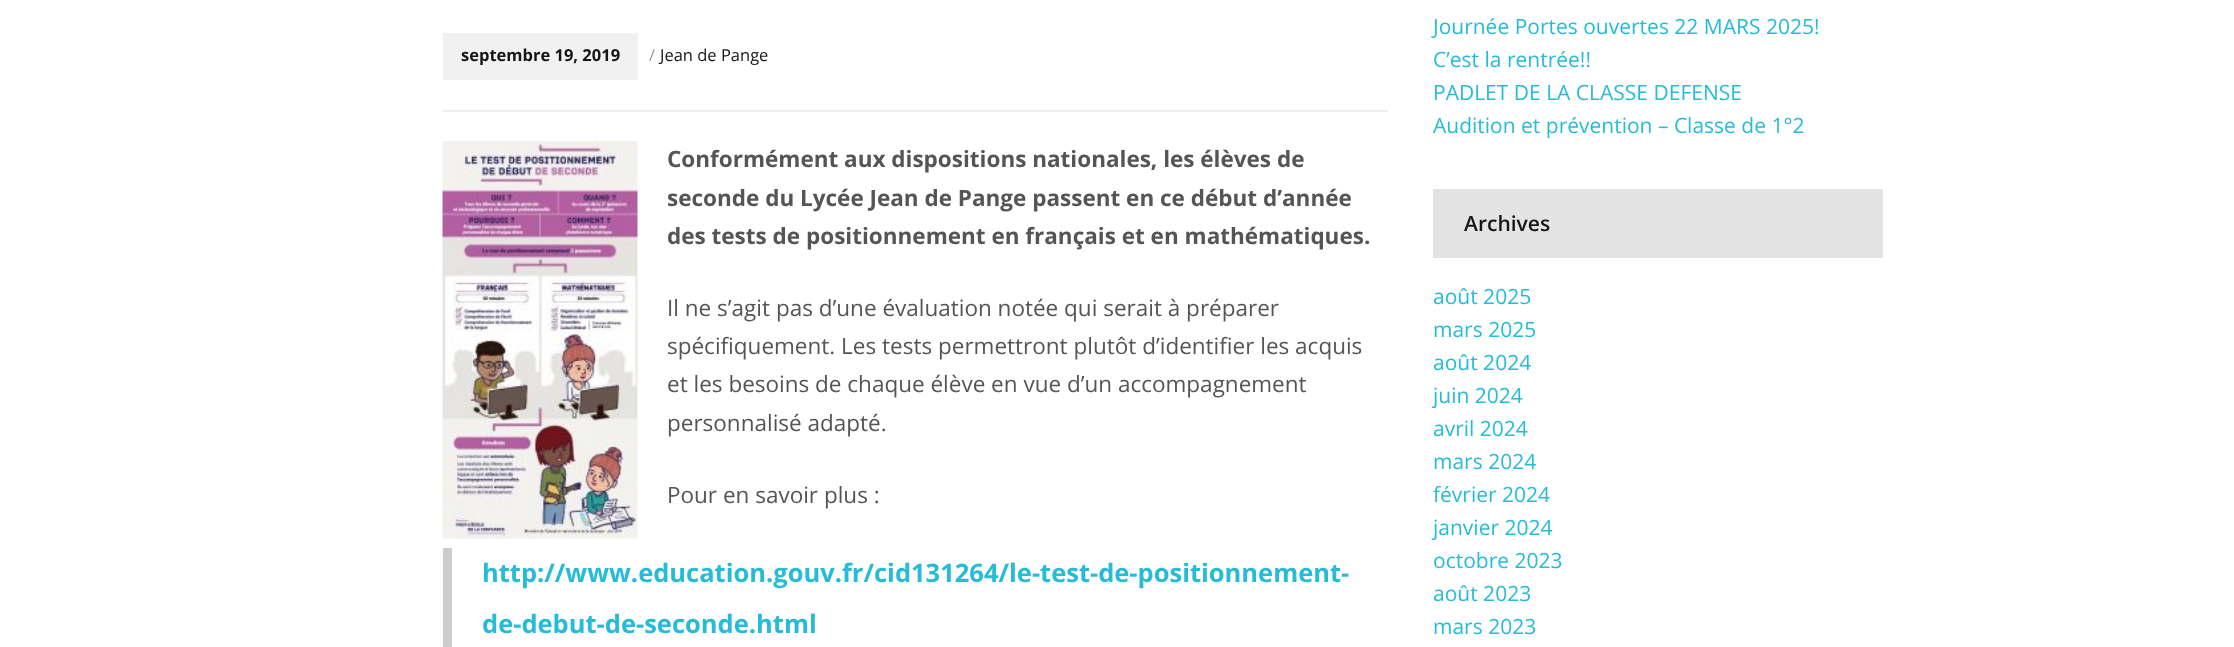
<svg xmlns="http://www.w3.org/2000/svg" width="2234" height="647">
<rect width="100%" height="100%" fill="#fff"/>
<rect x="443" y="33" width="195" height="47" fill="#f1f1f1"/>
<text x="461" y="61" style="font-family:Open Sans;font-size:16.5px;font-weight:bold;fill:#151515">septembre 19, 2019</text>
<text x="649" y="61" style="font-family:Open Sans;font-size:16.5px;fill:#999">/</text>
<text x="660" y="61" style="font-family:Open Sans;font-size:16.5px;fill:#151515">Jean de Pange</text>
<rect x="443" y="110" width="945" height="2" fill="#eee"/>
<image x="442" y="141" width="196" height="398" href="media/1.png"/>
<text x="667" y="167" style="font-family:Open Sans;font-size:22.5px;font-weight:bold;fill:#555">Conformément aux dispositions nationales, les élèves de</text>
<text x="667" y="206" style="font-family:Open Sans;font-size:22.5px;font-weight:bold;fill:#555">seconde du Lycée Jean de Pange passent en ce début d’année</text>
<text x="667" y="244" style="font-family:Open Sans;font-size:22.5px;font-weight:bold;fill:#555">des tests de positionnement en français et en mathématiques.</text>
<text x="667" y="316" style="font-family:Open Sans;font-size:22.5px;fill:#555">Il ne s’agit pas d’une évaluation notée qui serait à préparer</text>
<text x="667" y="354" style="font-family:Open Sans;font-size:22.5px;fill:#555">spécifiquement. Les tests permettront plutôt d’identifier les acquis</text>
<text x="667" y="392" style="font-family:Open Sans;font-size:22.5px;fill:#555">et les besoins de chaque élève en vue d’un accompagnement</text>
<text x="667" y="431" style="font-family:Open Sans;font-size:22.5px;fill:#555">personnalisé adapté.</text>
<text x="667" y="503" style="font-family:Open Sans;font-size:22.5px;fill:#555">Pour en savoir plus :</text>
<rect x="443" y="548" width="9" height="99" fill="#ccc"/>
<text x="482" y="582" style="font-family:Open Sans;font-size:25.5px;font-weight:bold;fill:#26bcd7">http://www.education.gouv.fr/cid131264/le-test-de-positionnement-</text>
<text x="482" y="633" style="font-family:Open Sans;font-size:25.5px;font-weight:bold;fill:#26bcd7">de-debut-de-seconde.html</text>
<text x="1433" y="34" style="font-family:Open Sans;font-size:21px;fill:#26bcd7">Journée Portes ouvertes 22 MARS 2025!</text>
<text x="1433" y="67" style="font-family:Open Sans;font-size:21px;fill:#26bcd7">C’est la rentrée!!</text>
<text x="1433" y="100" style="font-family:Open Sans;font-size:21px;fill:#26bcd7">PADLET DE LA CLASSE DEFENSE</text>
<text x="1433" y="133" style="font-family:Open Sans;font-size:21px;fill:#26bcd7">Audition et prévention – Classe de 1°2</text>
<rect x="1433" y="189" width="450" height="69" fill="#e3e3e3"/>
<text x="1464" y="231" style="font-family:Open Sans;font-size:21px;font-weight:600;fill:#151515">Archives</text>
<text x="1433" y="304" style="font-family:Open Sans;font-size:21px;fill:#26bcd7">août 2025</text>
<text x="1433" y="337" style="font-family:Open Sans;font-size:21px;fill:#26bcd7">mars 2025</text>
<text x="1433" y="370" style="font-family:Open Sans;font-size:21px;fill:#26bcd7">août 2024</text>
<text x="1433" y="403" style="font-family:Open Sans;font-size:21px;fill:#26bcd7">juin 2024</text>
<text x="1433" y="436" style="font-family:Open Sans;font-size:21px;fill:#26bcd7">avril 2024</text>
<text x="1433" y="469" style="font-family:Open Sans;font-size:21px;fill:#26bcd7">mars 2024</text>
<text x="1433" y="502" style="font-family:Open Sans;font-size:21px;fill:#26bcd7">février 2024</text>
<text x="1433" y="535" style="font-family:Open Sans;font-size:21px;fill:#26bcd7">janvier 2024</text>
<text x="1433" y="568" style="font-family:Open Sans;font-size:21px;fill:#26bcd7">octobre 2023</text>
<text x="1433" y="601" style="font-family:Open Sans;font-size:21px;fill:#26bcd7">août 2023</text>
<text x="1433" y="634" style="font-family:Open Sans;font-size:21px;fill:#26bcd7">mars 2023</text>
</svg>
